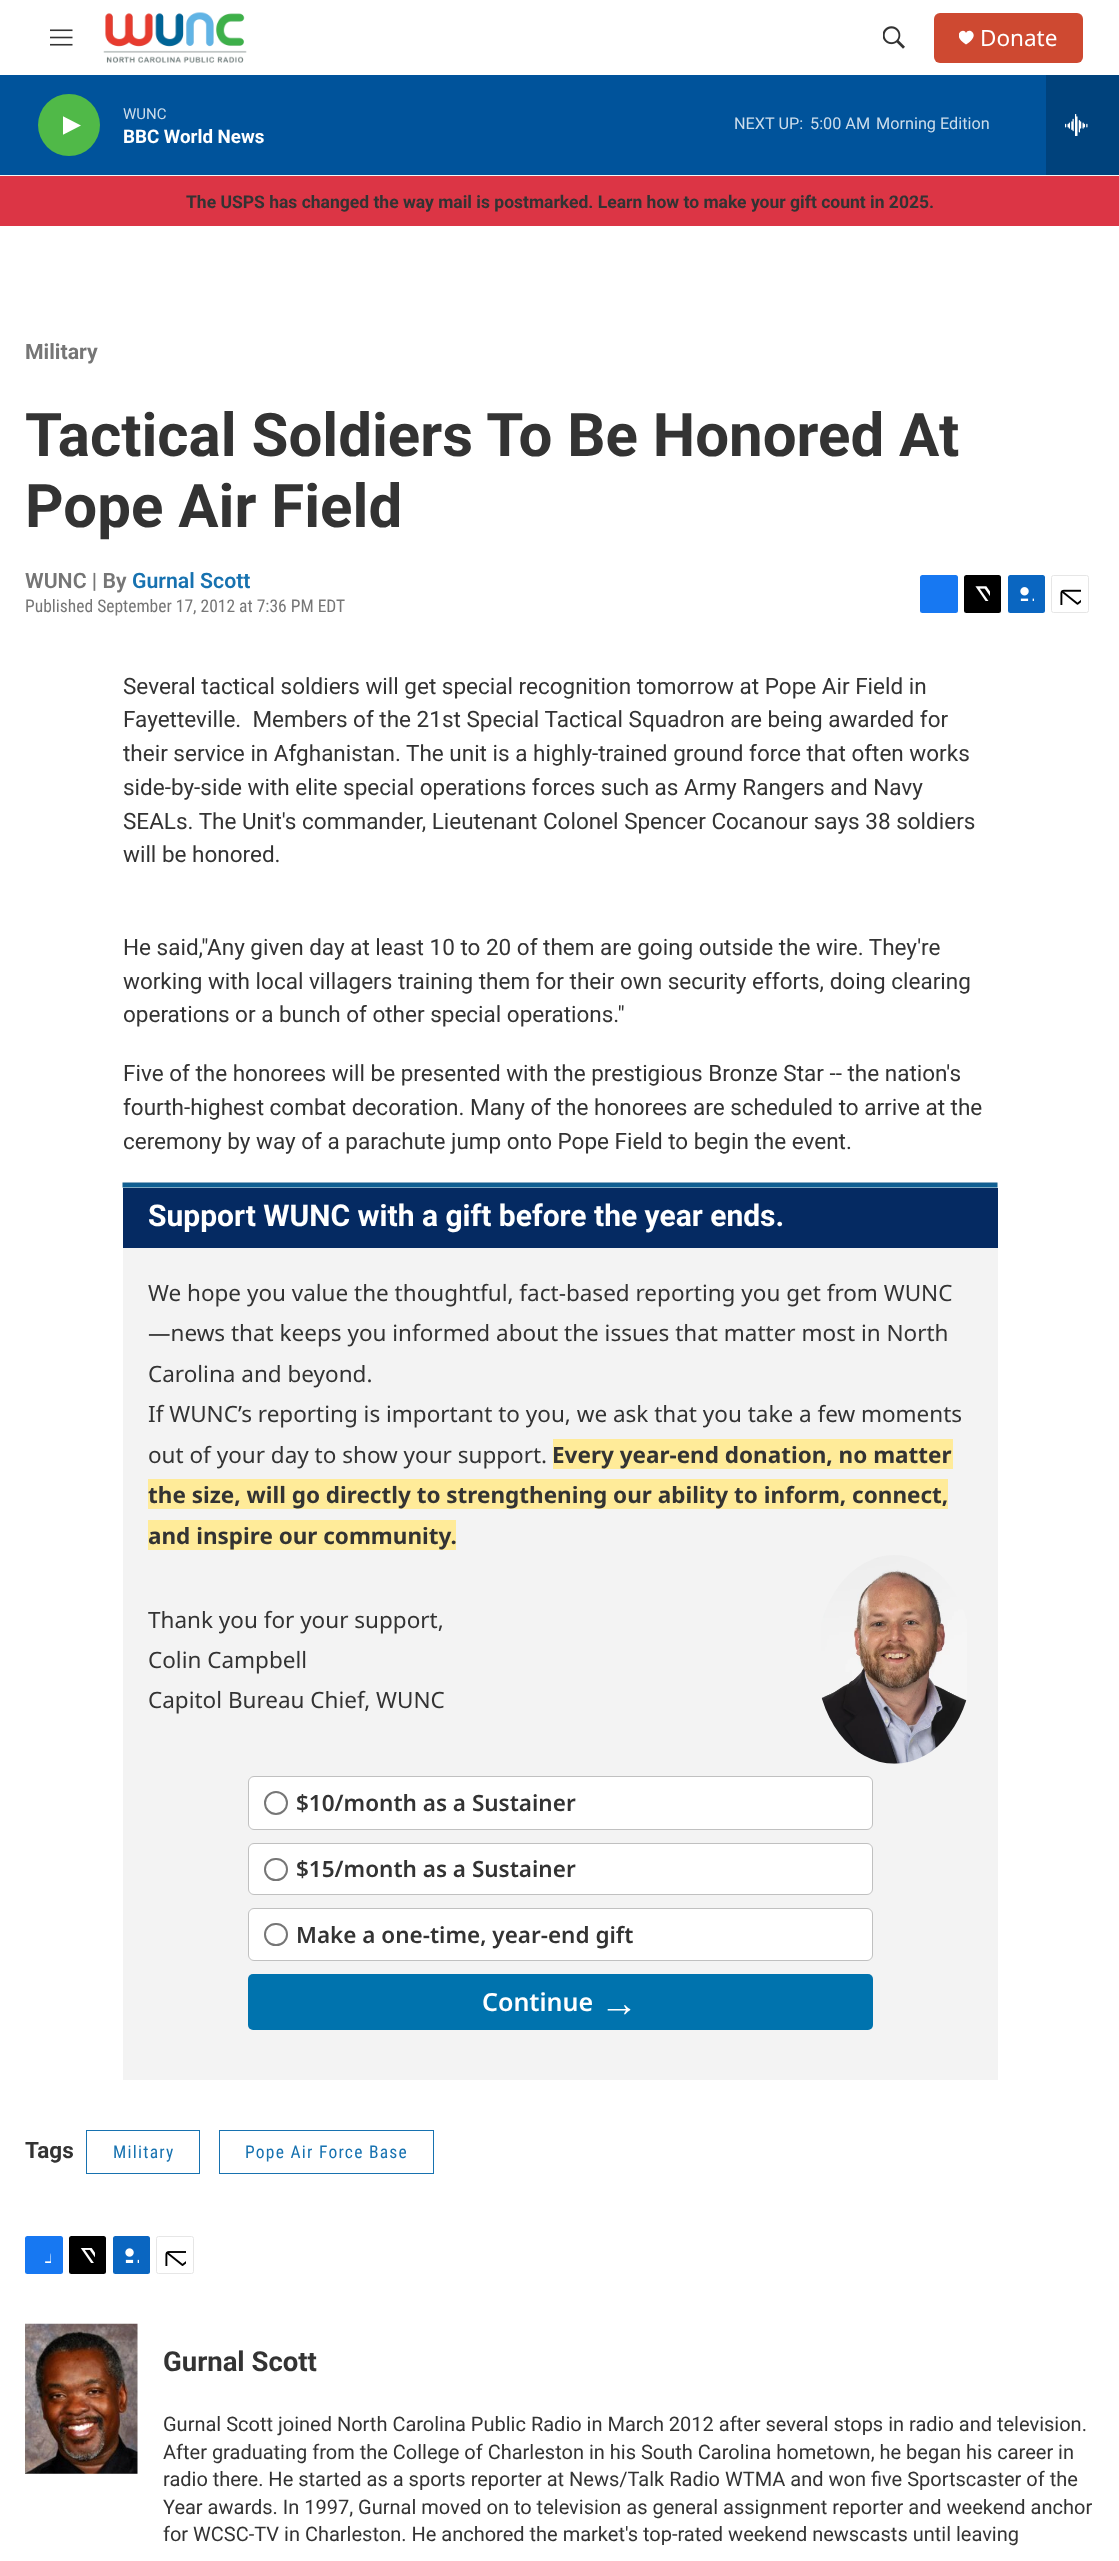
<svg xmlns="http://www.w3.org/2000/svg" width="1119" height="2561">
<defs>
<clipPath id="clip1"><rect x="959" y="30" width="15" height="15"/></clipPath>
<clipPath id="clip2"><rect x="63" y="114" width="18" height="24"/></clipPath>
</defs>
<rect width="100%" height="100%" fill="#fff"/>
<rect y="175" width="1119" height="1" fill="#f5f5f5"/>
<image x="50" y="29" width="23" height="17" href="media/1.png"/>
<image x="103" y="12" width="144" height="51" href="media/2.png"/>
<image x="883" y="26" width="22" height="23" href="media/3.png"/>
<rect x="934" y="13" width="149" height="50" rx="6" fill="#ce4931"/>
<g clip-path="url(#clip1)">
<path d="M966 33c-2-6.5-15.5 2 0 11.5c16-9.5 2.5-18 0-11.5z" fill="#fff"/>
</g>
<text x="980" y="46" style="font-family:Noto Sans;font-size:22.5px;fill:#fff">Donate</text>
<rect y="75" width="1046" height="100" fill="#00539b"/>
<circle cx="69" cy="125" r="31" fill="#50b948"/>
<g clip-path="url(#clip2)">
<path d="M62.5 116l18.5 9.5l-18.5 9.5z" fill="#fff"/>
</g>
<text x="123" y="119" style="font-family:Roboto;font-size:15px;fill:#ccddeb">WUNC</text>
<text x="123" y="143" style="font-family:Roboto;font-size:18.75px;font-weight:bold;fill:#fff">BBC World News</text>
<text x="734" y="129" style="font-family:Roboto;font-size:16.25px;fill:#ccddeb">NEXT UP:</text>
<text x="810" y="129" style="font-family:Roboto;font-size:16.25px;fill:#ccddeb">5:00 AM</text>
<text x="876" y="129" style="font-family:Roboto;font-size:16.25px;fill:#ccddeb">Morning Edition</text>
<rect x="1046" y="75" width="73" height="100" fill="#00427c"/>
<image x="1065" y="114" width="23" height="22" href="media/4.png"/>
<rect y="176" width="1119" height="50" fill="#dc3545"/>
<text x="186" y="208" style="font-family:Roboto;font-size:17.5px;font-weight:bold;fill:#333">The USPS has changed the way mail is postmarked. Learn how to make your gift count in 2025.</text>
<text x="25" y="359" style="font-family:'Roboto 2';font-size:21.25px;font-weight:bold;fill:#767676">Military</text>
<text x="25" y="456" style="font-family:'Roboto 2';font-size:60px;font-weight:bold;fill:#333">Tactical Soldiers To Be Honored At</text>
<text x="25" y="527" style="font-family:'Roboto 2';font-size:60px;font-weight:bold;fill:#333">Pope Air Field</text>
<text x="25" y="588" style="font-family:Roboto;font-size:21.25px;font-weight:600;fill:#767676">WUNC | By</text>
<text x="132" y="588" style="font-family:Roboto;font-size:21.25px;font-weight:600;fill:#1772b0">Gurnal Scott</text>
<text x="25" y="612" style="font-family:Roboto Condensed;font-size:17.5px;fill:#767676">Published September 17, 2012 at 7:36 PM EDT</text>
<rect x="920" y="575" width="38" height="38" rx="2.5" fill="#1778f2"/>
<rect x="964" y="575" width="37" height="38" rx="2.5" fill="#000"/>
<image x="975" y="586" width="15" height="15" href="media/5.png"/>
<rect x="1008" y="575" width="37" height="38" rx="2.5" fill="#0a66c1"/>
<image x="1020" y="587" width="14" height="14" href="media/6.png"/>
<rect x="1051.5" y="575.5" width="37" height="37" rx="2" fill="none" stroke="#e6e6e6"/>
<image x="1060" y="589" width="21" height="16" href="media/7.png"/>
<text x="123" y="694" style="font-family:Roboto;font-size:22.5px;fill:#333">Several tactical soldiers will get special recognition tomorrow at Pope Air Field in</text>
<text x="123" y="727" style="font-family:Roboto;font-size:22.5px;fill:#333" xml:space="preserve">Fayetteville.  Members of the 21st Special Tactical Squadron are being awarded for</text>
<text x="123" y="761" style="font-family:Roboto;font-size:22.5px;fill:#333">their service in Afghanistan. The unit is a highly-trained ground force that often works</text>
<text x="123" y="795" style="font-family:Roboto;font-size:22.5px;fill:#333">side-by-side with elite special operations forces such as Army Rangers and Navy</text>
<text x="123" y="829" style="font-family:Roboto;font-size:22.5px;fill:#333">SEALs. The Unit's commander, Lieutenant Colonel Spencer Cocanour says 38 soldiers</text>
<text x="123" y="862" style="font-family:Roboto;font-size:22.5px;fill:#333">will be honored.</text>
<text x="123" y="955" style="font-family:Roboto;font-size:22.5px;fill:#333">He said,"Any given day at least 10 to 20 of them are going outside the wire. They're</text>
<text x="123" y="989" style="font-family:Roboto;font-size:22.5px;fill:#333">working with local villagers training them for their own security efforts, doing clearing</text>
<text x="123" y="1022" style="font-family:Roboto;font-size:22.5px;fill:#333">operations or a bunch of other special operations."</text>
<text x="123" y="1081" style="font-family:Roboto;font-size:22.5px;fill:#333">Five of the honorees will be presented with the prestigious Bronze Star -- the nation's</text>
<text x="123" y="1115" style="font-family:Roboto;font-size:22.5px;fill:#333">fourth-highest combat decoration. Many of the honorees are scheduled to arrive at the</text>
<text x="123" y="1149" style="font-family:Roboto;font-size:22.5px;fill:#333">ceremony by way of a parachute jump onto Pope Field to begin the event.</text>
<rect x="123" y="1183" width="875" height="897" fill="#f3f3f3"/>
<image x="122" y="1182" width="876" height="6" href="media/8.png"/>
<rect x="123" y="1188" width="875" height="60" fill="#052a62"/>
<text x="148" y="1226" style="font-family:'Roboto 2';font-size:30px;font-weight:bold;fill:#fff">Support WUNC with a gift before the year ends.</text>
<text x="148" y="1301" style="font-family:Noto Sans;font-size:22.5px;fill:#333">We hope you value the thoughtful, fact-based reporting you get from WUNC</text>
<text x="148" y="1341" style="font-family:Noto Sans;font-size:22.5px;fill:#333">—news that keeps you informed about the issues that matter most in North</text>
<text x="148" y="1382" style="font-family:Noto Sans;font-size:22.5px;fill:#333">Carolina and beyond.</text>
<text x="148" y="1422" style="font-family:Noto Sans;font-size:22.5px;fill:#333">If WUNC’s reporting is important to you, we ask that you take a few moments</text>
<text x="148" y="1463" style="font-family:Noto Sans;font-size:22.5px;fill:#333">out of your day to show your support.</text>
<rect x="553" y="1439" width="400" height="30" fill="#ffeb99"/>
<text x="552" y="1463" style="font-family:Noto Sans;font-size:22.5px;font-weight:bold;fill:#333">Every year-end donation, no matter</text>
<rect x="148" y="1479" width="800" height="30" fill="#ffeb99"/>
<text x="148" y="1503" style="font-family:Noto Sans;font-size:22.5px;font-weight:bold;fill:#333">the size, will go directly to strengthening our ability to inform, connect,</text>
<rect x="148" y="1520" width="308" height="30" fill="#ffeb99"/>
<text x="148" y="1544" style="font-family:Noto Sans;font-size:22.5px;font-weight:bold;fill:#333">and inspire our community.</text>
<text x="148" y="1628" style="font-family:Noto Sans;font-size:22.5px;fill:#333">Thank you for your support,</text>
<text x="148" y="1668" style="font-family:Noto Sans;font-size:22.5px;fill:#333">Colin Campbell</text>
<text x="148" y="1708" style="font-family:Noto Sans;font-size:22.5px;fill:#333">Capitol Bureau Chief, WUNC</text>
<image x="821" y="1555" width="146" height="209" href="media/9.png"/>
<rect x="248.5" y="1776.5" width="624" height="53" rx="5.5" fill="#fff" stroke="#c0c0c0"/>
<circle cx="276" cy="1803" r="11" fill="none" stroke="#767676" stroke-width="2"/>
<text x="296" y="1811" style="font-family:Noto Sans;font-size:22.5px;font-weight:600;fill:#333">$10/month as a Sustainer</text>
<rect x="248.5" y="1843.5" width="624" height="51" rx="5.5" fill="#fff" stroke="#c0c0c0"/>
<rect x="265" y="1859" width="22" height="21" rx="10.5" fill="none" stroke="#767676" stroke-width="2"/>
<text x="296" y="1877" style="font-family:Noto Sans;font-size:22.5px;font-weight:600;fill:#333">$15/month as a Sustainer</text>
<rect x="248.5" y="1908.5" width="624" height="52" rx="5.5" fill="#fff" stroke="#c0c0c0"/>
<rect x="265" y="1924" width="22" height="21" rx="10.5" fill="none" stroke="#767676" stroke-width="2"/>
<text x="296" y="1943" style="font-family:Noto Sans;font-size:22.5px;font-weight:600;fill:#333">Make a one-time, year-end gift</text>
<rect x="248" y="1974" width="625" height="56" rx="5" fill="#0073ae"/>
<text x="482" y="2011" style="font-family:Noto Sans;font-size:25px;font-weight:600;fill:#fff">Continue</text>
<text x="600" y="2016" style="font-family:Liberation Sans;font-size:38px;font-weight:bold;fill:#fff">→</text>
<text x="25" y="2158" style="font-family:'Roboto 2';font-size:22.5px;font-weight:bold;fill:#333">Tags</text>
<rect x="86.5" y="2130.5" width="113" height="43" fill="none" stroke="#1772b0"/>
<text x="113" y="2158" style="font-family:Roboto Condensed;font-size:17.5px;letter-spacing:1.25px;fill:#1772b0">Military</text>
<rect x="219.5" y="2130.5" width="214" height="43" fill="none" stroke="#1772b0"/>
<text x="245" y="2158" style="font-family:Roboto Condensed;font-size:17.5px;letter-spacing:1.25px;fill:#1772b0">Pope Air Force Base</text>
<rect x="25" y="2236" width="38" height="38" rx="2.5" fill="#1778f2"/>
<image x="45" y="2253" width="6" height="10" href="media/10.png"/>
<rect x="69" y="2236" width="37" height="38" rx="2.5" fill="#000"/>
<image x="80" y="2248" width="15" height="15" href="media/11.png"/>
<rect x="113" y="2236" width="37" height="38" rx="2.5" fill="#0a66c1"/>
<image x="125" y="2248" width="14" height="15" href="media/12.png"/>
<rect x="156.5" y="2236.5" width="37" height="37" rx="2" fill="none" stroke="#e6e6e6"/>
<image x="165" y="2251" width="21" height="15" href="media/13.png"/>
<image x="25" y="2323" width="113" height="151" href="media/14.png"/>
<text x="163" y="2371" style="font-family:'Roboto 2';font-size:27.5px;font-weight:bold;fill:#333">Gurnal Scott</text>
<text x="163" y="2431" style="font-family:Roboto;font-size:20px;fill:#333">Gurnal Scott joined North Carolina Public Radio in March 2012 after several stops in radio and television.</text>
<text x="163" y="2459" style="font-family:Roboto;font-size:20px;fill:#333">After graduating from the College of Charleston in his South Carolina hometown, he began his career in</text>
<text x="163" y="2486" style="font-family:Roboto;font-size:20px;fill:#333">radio there. He started as a sports reporter at News/Talk Radio WTMA and won five Sportscaster of the</text>
<text x="163" y="2514" style="font-family:Roboto;font-size:20px;fill:#333">Year awards. In 1997, Gurnal moved on to television as general assignment reporter and weekend anchor</text>
<text x="163" y="2541" style="font-family:Roboto;font-size:20px;fill:#333">for WCSC-TV in Charleston. He anchored the market's top-rated weekend newscasts until leaving</text>
</svg>
